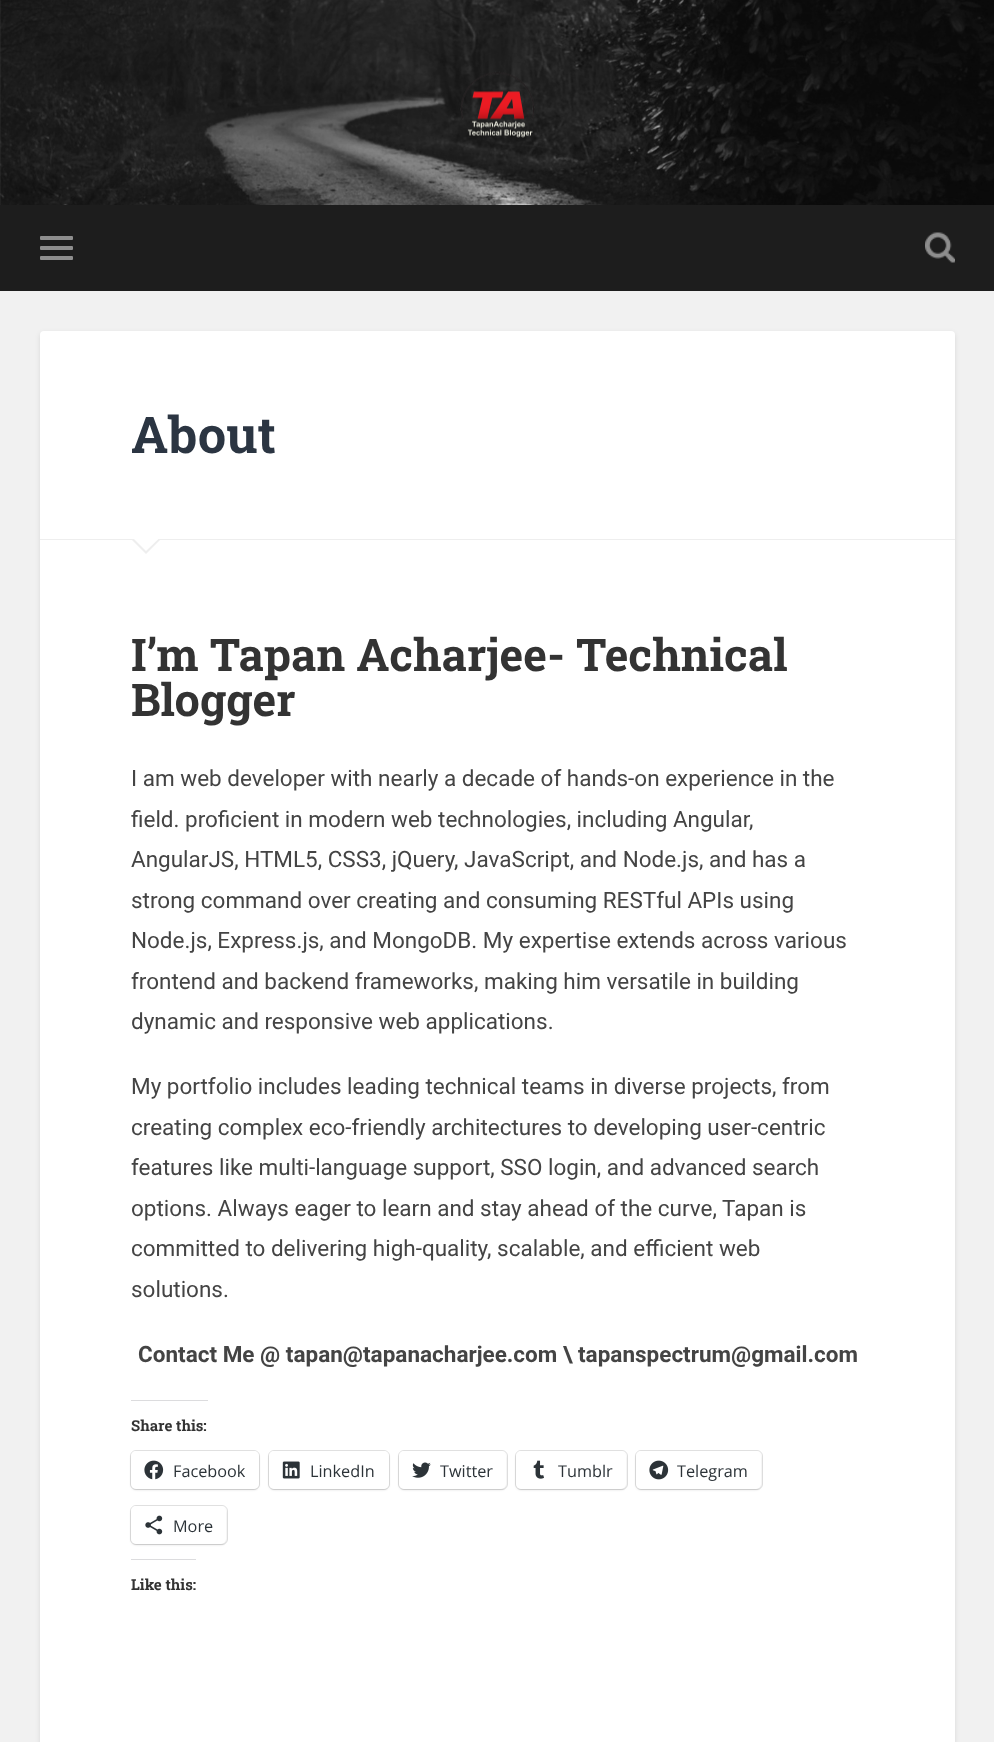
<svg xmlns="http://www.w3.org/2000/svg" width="994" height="1742">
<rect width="100%" height="100%" fill="#f1f1f1"/>
<image x="0" y="0" width="994" height="205" href="media/1.png"/>
<image x="460" y="71" width="75" height="67" href="media/2.png"/>
<rect y="205" width="994" height="86" fill="#1d1d1d"/>
<rect x="40" y="236" width="33" height="4" rx="1" fill="#8e8e8e"/>
<rect x="40" y="246" width="33" height="4" rx="1" fill="#8e8e8e"/>
<rect x="40" y="256" width="33" height="4" rx="1" fill="#8e8e8e"/>
<image x="925" y="232" width="30" height="31" href="media/3.png"/>
<rect x="40" y="333" width="915" height="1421" rx="4" fill="#0000001a" filter="blur(2.5px)"/>
<rect x="40" y="331" width="915" height="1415" rx="4" fill="#fff"/>
<rect x="40" y="539" width="915" height="1" fill="#eee"/>
<text x="131" y="453" style="font-family:Roboto Slab;font-size:50.5px;font-weight:bold;fill:#2b3542">About</text>
<path d="M131 539h30l-15 15z" fill="#eee"/>
<path d="M132.5 537.5h27.5l-14 13.5z" fill="#fff"/>
<text x="131" y="671" style="font-family:Roboto Slab;font-size:45px;font-weight:bold;fill:#333">I’m Tapan Acharjee- Technical</text>
<text x="131" y="716" style="font-family:Roboto Slab;font-size:45px;font-weight:bold;fill:#333">Blogger</text>
<text x="131" y="786" style="font-family:Roboto;font-size:22.5px;fill:#444">I am web developer with nearly a decade of hands-on experience in the</text>
<text x="131" y="827" style="font-family:Roboto;font-size:22.5px;fill:#444">field. proficient in modern web technologies, including Angular,</text>
<text x="131" y="867" style="font-family:Roboto;font-size:22.5px;fill:#444">AngularJS, HTML5, CSS3, jQuery, JavaScript, and Node.js, and has a</text>
<text x="131" y="908" style="font-family:Roboto;font-size:22.5px;fill:#444">strong command over creating and consuming RESTful APIs using</text>
<text x="131" y="948" style="font-family:Roboto;font-size:22.5px;fill:#444">Node.js, Express.js, and MongoDB. My expertise extends across various</text>
<text x="131" y="989" style="font-family:Roboto;font-size:22.5px;fill:#444">frontend and backend frameworks, making him versatile in building</text>
<text x="131" y="1029" style="font-family:Roboto;font-size:22.5px;fill:#444">dynamic and responsive web applications.</text>
<text x="131" y="1094" style="font-family:Roboto;font-size:22.5px;fill:#444">My portfolio includes leading technical teams in diverse projects, from</text>
<text x="131" y="1135" style="font-family:Roboto;font-size:22.5px;fill:#444">creating complex eco-friendly architectures to developing user-centric</text>
<text x="131" y="1175" style="font-family:Roboto;font-size:22.5px;fill:#444">features like multi-language support, SSO login, and advanced search</text>
<text x="131" y="1216" style="font-family:Roboto;font-size:22.5px;fill:#444">options. Always eager to learn and stay ahead of the curve, Tapan is</text>
<text x="131" y="1256" style="font-family:Roboto;font-size:22.5px;fill:#444">committed to delivering high-quality, scalable, and efficient web</text>
<text x="131" y="1297" style="font-family:Roboto;font-size:22.5px;fill:#444">solutions.</text>
<text x="138" y="1362" style="font-family:Roboto;font-size:22.5px;font-weight:bold;fill:#444">Contact Me @ tapan@tapanacharjee.com \ tapanspectrum@gmail.com</text>
<rect x="131" y="1400" width="77" height="1" fill="#dcdcde"/>
<text x="131" y="1431" style="font-family:Roboto Slab;font-size:15px;font-weight:bold;fill:#333">Share this:</text>
<rect x="130.5" y="1450.5" width="129" height="39" rx="5.5" fill="none" stroke="#e0e0e0"/>
<rect x="131" y="1453" width="128" height="37" rx="5" fill="#0000001f" filter="blur(1px)"/>
<rect x="131" y="1451" width="128" height="38" rx="5" fill="#fff"/>
<image x="144" y="1460" width="20" height="20" href="media/4.png"/>
<text x="173" y="1477" style="font-family:Open Sans;font-size:16.25px;fill:#2c3338">Facebook</text>
<rect x="268.5" y="1450.5" width="121" height="39" rx="5.5" fill="none" stroke="#e0e0e0"/>
<rect x="269" y="1453" width="120" height="37" rx="5" fill="#0000001f" filter="blur(1px)"/>
<rect x="269" y="1451" width="120" height="38" rx="5" fill="#fff"/>
<image x="282" y="1461" width="18" height="18" href="media/5.png"/>
<text x="310" y="1477" style="font-family:Open Sans;font-size:16.25px;fill:#2c3338">LinkedIn</text>
<rect x="398.5" y="1450.5" width="109" height="39" rx="5.5" fill="none" stroke="#e0e0e0"/>
<rect x="399" y="1453" width="107" height="37" rx="5" fill="#0000001f" filter="blur(1px)"/>
<rect x="399" y="1451" width="107" height="38" rx="5" fill="#fff"/>
<image x="412" y="1462" width="19" height="16" href="media/6.png"/>
<text x="440" y="1477" style="font-family:Open Sans;font-size:16.25px;fill:#2c3338">Twitter</text>
<rect x="515.5" y="1450.5" width="112" height="39" rx="5.5" fill="none" stroke="#e0e0e0"/>
<rect x="516" y="1453" width="110" height="37" rx="5" fill="#0000001f" filter="blur(1px)"/>
<rect x="516" y="1451" width="110" height="38" rx="5" fill="#fff"/>
<image x="533" y="1460" width="11" height="19" href="media/7.png"/>
<text x="558" y="1477" style="font-family:Open Sans;font-size:16.25px;fill:#2c3338">Tumblr</text>
<rect x="635.5" y="1450.5" width="127" height="39" rx="5.5" fill="none" stroke="#e0e0e0"/>
<rect x="636" y="1453" width="125" height="37" rx="5" fill="#0000001f" filter="blur(1px)"/>
<rect x="636" y="1451" width="125" height="38" rx="5" fill="#fff"/>
<image x="649" y="1460" width="20" height="20" href="media/8.png"/>
<text x="677" y="1477" style="font-family:Open Sans;font-size:16.25px;fill:#2c3338">Telegram</text>
<rect x="130.5" y="1505.5" width="97" height="39" rx="5.5" fill="none" stroke="#e0e0e0"/>
<rect x="131" y="1508" width="95" height="37" rx="5" fill="#0000001f" filter="blur(1px)"/>
<rect x="131" y="1506" width="95" height="38" rx="5" fill="#fff"/>
<image x="145" y="1515" width="18" height="20" href="media/9.png"/>
<text x="173" y="1532" style="font-family:Open Sans;font-size:16.25px;fill:#2c3338">More</text>
<rect x="131" y="1559" width="65" height="1" fill="#dcdcde"/>
<text x="131" y="1590" style="font-family:Roboto Slab;font-size:15px;font-weight:bold;fill:#333">Like this:</text>
</svg>
